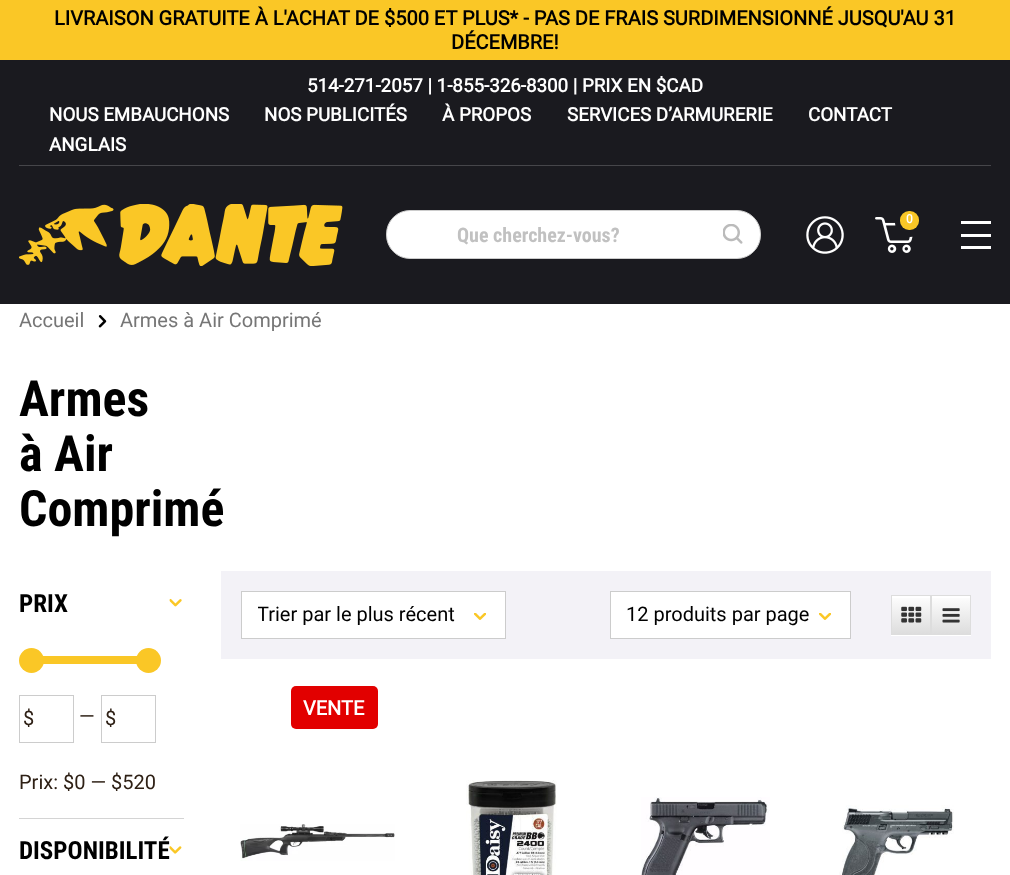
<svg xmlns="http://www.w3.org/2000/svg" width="1010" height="875">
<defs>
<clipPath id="clip1"><rect x="258" y="604" width="207" height="22"/></clipPath>
<linearGradient id="g1" gradientUnits="userSpaceOnUse" x1="911" y1="595" x2="911" y2="635"><stop offset="0" stop-color="#fff"/><stop offset="1" stop-color="#dcdcdc"/></linearGradient>
<linearGradient id="g2" gradientUnits="userSpaceOnUse" x1="951" y1="595" x2="951" y2="635"><stop offset="0" stop-color="#fff"/><stop offset="1" stop-color="#dcdcdc"/></linearGradient>
</defs>
<rect width="100%" height="100%" fill="#fff"/>
<rect width="1010" height="60" fill="#fac726"/>
<text x="54" y="25" style="font-family:Roboto;font-size:20px;font-weight:bold;fill:#000">LIVRAISON GRATUITE À L'ACHAT DE $500 ET PLUS* - PAS DE FRAIS SURDIMENSIONNÉ JUSQU'AU 31</text>
<text x="451" y="49" style="font-family:Roboto;font-size:20px;font-weight:bold;fill:#000">DÉCEMBRE!</text>
<rect y="60" width="1010" height="244" fill="#1a1a1f"/>
<text x="307" y="92" style="font-family:Roboto;font-size:18.75px;font-weight:bold;fill:#fff">514-271-2057 | 1-855-326-8300 | PRIX EN $CAD</text>
<text x="49" y="121" style="font-family:Roboto;font-size:18.75px;font-weight:bold;fill:#fff">NOUS EMBAUCHONS</text>
<text x="264" y="121" style="font-family:Roboto;font-size:18.75px;font-weight:bold;fill:#fff">NOS PUBLICITÉS</text>
<text x="442" y="121" style="font-family:Roboto;font-size:18.75px;font-weight:bold;fill:#fff">À PROPOS</text>
<text x="567" y="121" style="font-family:Roboto;font-size:18.75px;font-weight:bold;fill:#fff">SERVICES D’ARMURERIE</text>
<text x="808" y="121" style="font-family:Roboto;font-size:18.75px;font-weight:bold;fill:#fff">CONTACT</text>
<text x="49" y="151" style="font-family:Roboto;font-size:18.75px;font-weight:bold;fill:#fff">ANGLAIS</text>
<rect x="19" y="165" width="972" height="1" fill="#46464a"/>
<image x="19" y="204" width="324" height="62" href="media/1.png"/>
<image x="806" y="216" width="38" height="38" href="media/2.png"/>
<image x="875" y="217" width="38" height="36" href="media/3.png"/>
<rect x="900" y="211" width="19" height="19" rx="9" fill="#fac726"/>
<text x="906" y="223" style="font-family:Roboto;font-size:12px;font-weight:bold;fill:#fff">0</text>
<rect x="386.5" y="210.5" width="374" height="48" rx="23.5" fill="#fff" stroke="#ccc"/>
<text x="457" y="242" style="font-family:Roboto Condensed;font-size:20px;font-weight:bold;fill:#c1c1c1">Que cherchez-vous?</text>
<image x="723" y="224" width="20" height="20" href="media/4.png"/>
<rect x="961" y="234" width="30" height="3" fill="#fff"/>
<rect x="961" y="221" width="30" height="3" fill="#fff"/>
<rect x="961" y="246" width="30" height="3" fill="#fff"/>
<text x="19" y="327" style="font-family:Roboto;font-size:20px;fill:#767676">Accueil</text>
<image x="98" y="315" width="9" height="13" href="media/5.png"/>
<text x="120" y="327" style="font-family:Roboto;font-size:20px;fill:#767676">Armes à Air Comprimé</text>
<text x="19" y="416" style="font-family:Roboto Condensed;font-size:50px;font-weight:bold;fill:#000">Armes</text>
<text x="19" y="471" style="font-family:Roboto Condensed;font-size:50px;font-weight:bold;fill:#000">à Air</text>
<text x="19" y="526" style="font-family:Roboto Condensed;font-size:50px;font-weight:bold;fill:#000">Comprimé</text>
<rect x="19" y="818" width="165" height="1" fill="#d4d4d4"/>
<text x="19" y="612" style="font-family:Roboto Condensed;font-size:25px;font-weight:bold;fill:#000">PRIX</text>
<image x="169" y="598" width="13" height="9" href="media/6.png"/>
<rect x="43" y="656" width="94" height="8" fill="#fac726"/>
<circle cx="31.5" cy="660.5" r="12.5" fill="#fac726"/>
<circle cx="148.5" cy="660.5" r="12.5" fill="#fac726"/>
<rect x="19.5" y="695.5" width="54" height="47" fill="none" stroke="#ccc"/>
<text x="23" y="725" style="font-family:Roboto;font-size:20px;fill:#2e2015">$</text>
<text x="79" y="723" style="font-family:Roboto;font-size:20px;fill:#2e2015">—</text>
<rect x="101.5" y="695.5" width="54" height="47" fill="none" stroke="#ccc"/>
<text x="105" y="725" style="font-family:Roboto;font-size:20px;fill:#2e2015">$</text>
<text x="19" y="789" style="font-family:Roboto;font-size:20px;fill:#2e2015">Prix: $0 — $520</text>
<text x="19" y="859" style="font-family:Roboto Condensed;font-size:25px;font-weight:bold;fill:#000">DISPONIBILITÉ</text>
<image x="169" y="846" width="13" height="8" href="media/7.png"/>
<rect x="221" y="571" width="770" height="88" fill="#f3f2f7"/>
<rect x="241.5" y="591.5" width="264" height="47" fill="#fff" stroke="#ccc"/>
<g clip-path="url(#clip1)">
<text x="257" y="621" style="font-family:Roboto;font-size:20px;fill:#000">Trier par le plus récent</text>
</g>
<image x="474" y="613" width="12" height="7" href="media/8.png"/>
<rect x="610.5" y="591.5" width="240" height="47" fill="#fff" stroke="#ccc"/>
<text x="626" y="621" style="font-family:Roboto;font-size:20px;fill:#000">12 produits par page</text>
<image x="819" y="613" width="12" height="7" href="media/8.png"/>
<rect x="891" y="596" width="40" height="40" fill="#fff" filter="blur(0.5px)"/>
<rect x="892" y="598" width="38" height="36" fill="url(#g1)"/>
<rect x="891.5" y="595.5" width="39" height="39" fill="none" stroke="#ddd"/>
<image x="901" y="606" width="21" height="17" href="media/9.png"/>
<rect x="931" y="596" width="40" height="40" fill="#fff" filter="blur(0.5px)"/>
<rect x="932" y="598" width="38" height="36" fill="url(#g2)"/>
<rect x="931.5" y="595.5" width="39" height="39" fill="none" stroke="#ddd"/>
<image x="942" y="608" width="18" height="15" href="media/10.png"/>
<rect x="291" y="686" width="87" height="43" rx="5" fill="#e20000"/>
<text x="303" y="715" style="font-family:Roboto;font-size:20px;font-weight:bold;fill:#fff">VENTE</text>
<image x="240" y="824" width="155" height="37" href="media/11.png"/>
<image x="466" y="780" width="91" height="95" href="media/12.png"/>
<image x="641" y="797" width="129" height="78" href="media/13.png"/>
<image x="839" y="805" width="115" height="70" href="media/14.png"/>
</svg>
